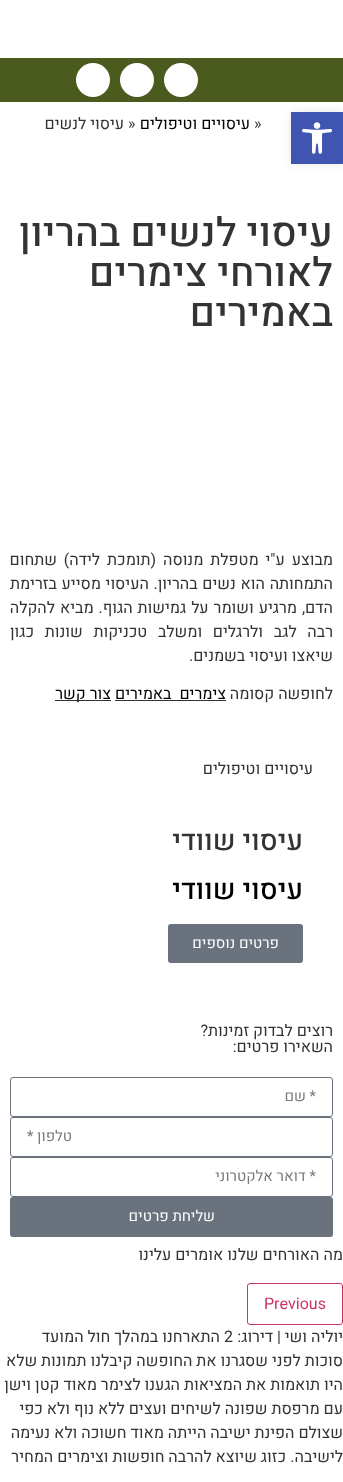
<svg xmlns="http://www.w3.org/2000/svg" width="343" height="1482">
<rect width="100%" height="100%" fill="#fff"/>
<rect y="58" width="343" height="44" fill="#4b5b1e"/>
<circle cx="181" cy="80" r="17" fill="#fff"/>
<circle cx="137" cy="80" r="17" fill="#fff"/>
<circle cx="93" cy="80" r="17" fill="#fff"/>
<rect x="291" y="112" width="52" height="52" fill="#0000001a" filter="blur(5px)"/>
<rect x="291" y="112" width="52" height="52" fill="#4054b2"/>
<image x="302" y="122" width="30" height="32" href="media/1.png"/>
<text x="254" y="129" style="font-family:Heebo;font-size:16px;fill:#333">»</text>
<text x="250" y="129" style="font-family:Heebo;font-size:16px;direction:rtl;fill:#000">עיסויים וטיפולים</text>
<text x="128" y="129" style="font-family:Heebo;font-size:16px;fill:#333">»</text>
<text x="124" y="129" style="font-family:Heebo;font-size:16px;direction:rtl;fill:#333">עיסוי לנשים</text>
<text x="333" y="246" style="font-family:Heebo;font-size:40px;font-weight:500;direction:rtl;fill:#333">עיסוי לנשים בהריון</text>
<text x="333" y="286" style="font-family:Heebo;font-size:40px;font-weight:500;direction:rtl;fill:#333">לאורחי צימרים</text>
<text x="333" y="326" style="font-family:Heebo;font-size:40px;font-weight:500;direction:rtl;fill:#333">באמירים</text>
<text x="333" y="565" word-spacing="3" style="font-family:Heebo;font-size:16px;direction:rtl;fill:#333">מבוצע ע"י מטפלת מנוסה (תומכת לידה) שתחום</text>
<text x="333" y="589" word-spacing="0.75" style="font-family:Heebo;font-size:16px;direction:rtl;fill:#333">התמחותה הוא נשים בהריון. העיסוי מסייע בזרימת</text>
<text x="333" y="613" word-spacing="1" style="font-family:Heebo;font-size:16px;direction:rtl;fill:#333">הדם, מרגיע ושומר על גמישות הגוף. מביא להקלה</text>
<text x="333" y="637" word-spacing="6.75" style="font-family:Heebo;font-size:16px;direction:rtl;fill:#333">רבה לגב ולרגלים ומשלב טכניקות שונות כגון</text>
<text x="333" y="661" style="font-family:Heebo;font-size:16px;direction:rtl;fill:#333">שיאצו ועיסוי בשמנים.</text>
<text x="333" y="699" style="font-family:Heebo;font-size:16px;direction:rtl;fill:#333">לחופשה קסומה</text>
<text x="226" y="699" style="font-family:Heebo;font-size:16px;direction:rtl;fill:#000" xml:space="preserve">צימרים  באמירים</text>
<rect x="115" y="700" width="111" height="1" fill="#333"/>
<rect x="55" y="700" width="56" height="1" fill="#333"/>
<text x="111" y="699" style="font-family:Heebo;font-size:16px;direction:rtl;fill:#000">צור קשר</text>
<text x="313" y="774" style="font-family:Heebo;font-size:16px;direction:rtl;fill:#333">עיסויים וטיפולים</text>
<text x="303" y="850" style="font-family:Heebo;font-size:28px;font-weight:500;direction:rtl;fill:#333">עיסוי שוודי</text>
<text x="303" y="899" style="font-family:Heebo;font-size:28px;font-weight:500;direction:rtl;fill:#000">עיסוי שוודי</text>
<rect x="168" y="924" width="135" height="39" rx="3" fill="#69727d"/>
<text x="279" y="948" style="font-family:Heebo;font-size:15px;direction:rtl;fill:#fff">פרטים נוספים</text>
<text x="333" y="1036" style="font-family:Heebo;font-size:16px;direction:rtl;fill:#333">רוצים לבדוק זמינות?</text>
<text x="333" y="1052" style="font-family:Heebo;font-size:16px;direction:rtl;fill:#333">השאירו פרטים:</text>
<rect x="10.5" y="1077.5" width="322" height="39" rx="2.5" fill="none" stroke="#69727d"/>
<text x="316" y="1101" style="font-family:Heebo;font-size:15px;direction:rtl;fill:#797a7c">* שם</text>
<rect x="10.5" y="1117.5" width="322" height="39" rx="2.5" fill="none" stroke="#69727d"/>
<text x="72" y="1141" style="font-family:Heebo;font-size:15px;direction:rtl;fill:#797a7c">טלפון</text>
<text x="27" y="1141" style="font-family:Heebo;font-size:15px;fill:#797a7c">*</text>
<rect x="10.5" y="1157.5" width="322" height="39" rx="2.5" fill="none" stroke="#69727d"/>
<text x="316" y="1181" style="font-family:Heebo;font-size:15px;direction:rtl;fill:#797a7c">* דואר אלקטרוני</text>
<rect x="10" y="1197" width="323" height="40" rx="3" fill="#69727d"/>
<text x="215" y="1221" style="font-family:Heebo;font-size:15px;direction:rtl;fill:#fff">שליחת פרטים</text>
<text x="343" y="1260" style="font-family:Heebo;font-size:16px;direction:rtl;fill:#333">מה האורחים שלנו אומרים עלינו</text>
<rect x="247.5" y="1283.5" width="95" height="41" rx="2.5" fill="none" stroke="#c36"/>
<text x="264" y="1309" style="font-family:Heebo;font-size:16px;fill:#c36">Previous</text>
<text x="343" y="1342" style="font-family:Heebo;font-size:16px;direction:rtl;fill:#333">יוליה ושי</text>
<text x="281" y="1342" style="font-family:Heebo;font-size:16px;direction:rtl;fill:#333">| דירוג:</text>
<text x="224" y="1342" style="font-family:Heebo;font-size:16px;fill:#333">2</text>
<text x="220" y="1342" style="font-family:Heebo;font-size:16px;direction:rtl;fill:#333">התארחנו במהלך חול המועד</text>
<text x="343" y="1366" style="font-family:Heebo;font-size:16px;direction:rtl;fill:#333">סוכות לפני שסגרנו את החופשה קיבלנו תמונות שלא</text>
<text x="343" y="1390" style="font-family:Heebo;font-size:16px;direction:rtl;fill:#333">היו תואמות את המציאות הגענו לצימר מאוד קטן וישן</text>
<text x="343" y="1414" style="font-family:Heebo;font-size:16px;direction:rtl;fill:#333">עם מרפסת שפונה לשיחים ועצים ללא נוף ולא כפי</text>
<text x="343" y="1438" style="font-family:Heebo;font-size:16px;direction:rtl;fill:#333">שצולם הפינת ישיבה הייתה מאוד חשוכה ולא נעימה</text>
<text x="343" y="1462" style="font-family:Heebo;font-size:16px;direction:rtl;fill:#333">לישיבה.</text>
<text x="286" y="1462" style="font-family:Heebo;font-size:16px;direction:rtl;fill:#333">כזוג שיוצא להרבה חופשות וצימרים המחיר</text>
</svg>
